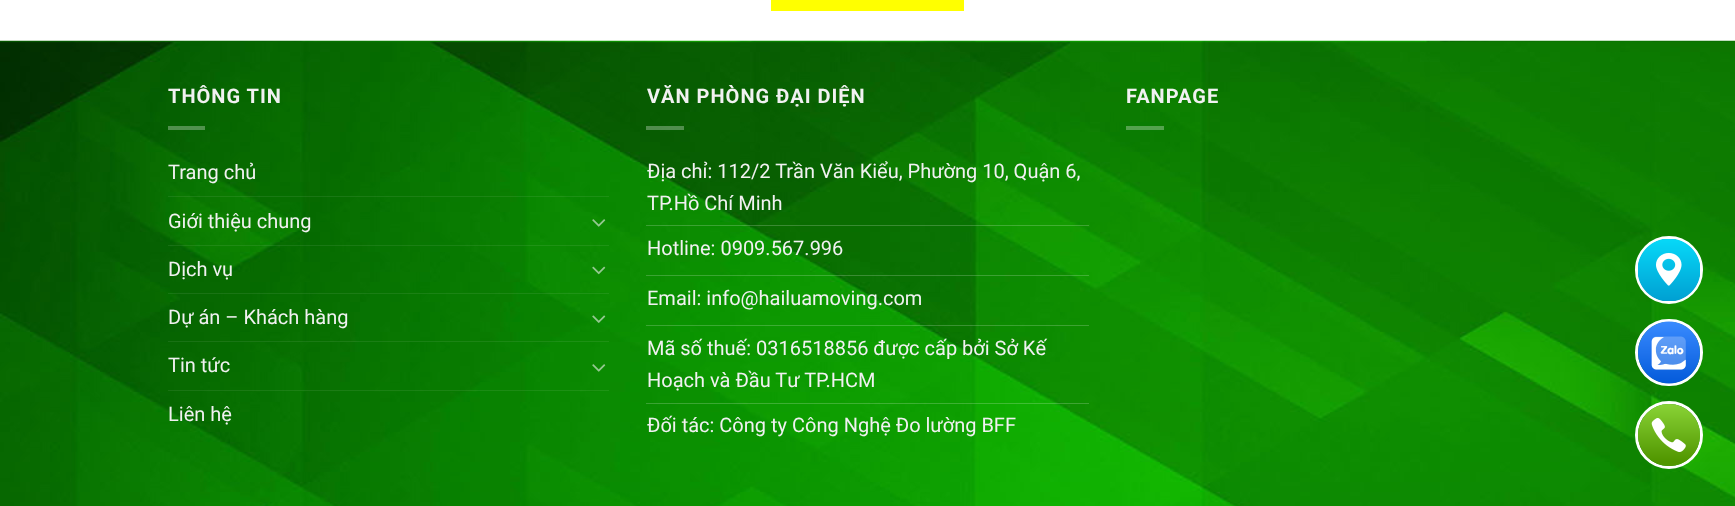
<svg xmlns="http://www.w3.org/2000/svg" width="1735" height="506">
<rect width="100%" height="100%" fill="#fff"/>
<rect x="771" width="193" height="11" fill="#ff0"/>
<image x="0" y="40" width="1735" height="466" href="media/1.png"/>
<rect y="41" width="1735" height="1" fill="#0000000d"/>
<text x="168" y="103" style="font-family:Roboto;font-size:20px;font-weight:bold;letter-spacing:1px;fill:#f1f1f1">THÔNG TIN</text>
<rect x="168" y="126" width="37" height="4" fill="#ffffff4d"/>
<text x="168" y="179" style="font-family:Roboto;font-size:20px;fill:#f1f1f1">Trang chủ</text>
<rect x="168" y="196" width="441" height="1" fill="#ffffff14"/>
<text x="168" y="228" style="font-family:Roboto;font-size:20px;fill:#f1f1f1">Giới thiệu chung</text>
<image x="592" y="219" width="14" height="8" href="media/2.png"/>
<rect x="168" y="245" width="441" height="1" fill="#ffffff14"/>
<text x="168" y="276" style="font-family:Roboto;font-size:20px;fill:#f1f1f1">Dịch vụ</text>
<image x="592" y="266" width="14" height="9" href="media/3.png"/>
<rect x="168" y="293" width="441" height="1" fill="#ffffff14"/>
<text x="168" y="324" style="font-family:Roboto;font-size:20px;fill:#f1f1f1">Dự án – Khách hàng</text>
<image x="592" y="315" width="14" height="8" href="media/4.png"/>
<rect x="168" y="341" width="441" height="1" fill="#ffffff14"/>
<text x="168" y="372" style="font-family:Roboto;font-size:20px;fill:#f1f1f1">Tin tức</text>
<image x="592" y="364" width="14" height="8" href="media/5.png"/>
<rect x="168" y="390" width="441" height="1" fill="#ffffff14"/>
<text x="168" y="421" style="font-family:Roboto;font-size:20px;fill:#f1f1f1">Liên hệ</text>
<text x="647" y="103" style="font-family:Roboto;font-size:20px;font-weight:bold;letter-spacing:1px;fill:#f1f1f1">VĂN PHÒNG ĐẠI DIỆN</text>
<rect x="646" y="126" width="38" height="4" fill="#ffffff4d"/>
<rect x="646" y="225" width="443" height="1" fill="#ffffff33"/>
<text x="647" y="178" style="font-family:Roboto;font-size:20px;fill:#f1f1f1">Địa chỉ: 112/2 Trần Văn Kiểu, Phường 10, Quận 6,</text>
<text x="647" y="210" style="font-family:Roboto;font-size:20px;fill:#f1f1f1">TP.Hồ Chí Minh</text>
<rect x="646" y="275" width="443" height="1" fill="#ffffff33"/>
<text x="647" y="255" style="font-family:Roboto;font-size:20px;fill:#f1f1f1">Hotline: 0909.567.996</text>
<rect x="646" y="325" width="443" height="1" fill="#ffffff33"/>
<text x="647" y="305" style="font-family:Roboto;font-size:20px;fill:#f1f1f1">Email: info@hailuamoving.com</text>
<rect x="646" y="403" width="443" height="1" fill="#ffffff33"/>
<text x="647" y="355" style="font-family:Roboto;font-size:20px;fill:#f1f1f1">Mã số thuế: 0316518856 được cấp bởi Sở Kế</text>
<text x="647" y="387" style="font-family:Roboto;font-size:20px;fill:#f1f1f1">Hoạch và Đầu Tư TP.HCM</text>
<text x="647" y="432" style="font-family:Roboto;font-size:20px;fill:#f1f1f1">Đối tác: Công ty Công Nghệ Đo lường BFF</text>
<text x="1126" y="103" style="font-family:Roboto;font-size:20px;font-weight:bold;letter-spacing:1px;fill:#f1f1f1">FANPAGE</text>
<rect x="1126" y="126" width="38" height="4" fill="#54a34e"/>
<circle cx="1669" cy="270" r="32.5" fill="none" stroke="#fff" stroke-width="3"/>
<image x="1638" y="239" width="62" height="62" href="media/6.png"/>
<rect x="1636.5" y="320.5" width="65" height="64" rx="32" fill="none" stroke="#fff" stroke-width="3"/>
<image x="1638" y="321" width="62" height="63" href="media/7.png"/>
<circle cx="1669" cy="435" r="32.5" fill="none" stroke="#fff" stroke-width="3"/>
<image x="1638" y="404" width="62" height="62" href="media/8.png"/>
</svg>
